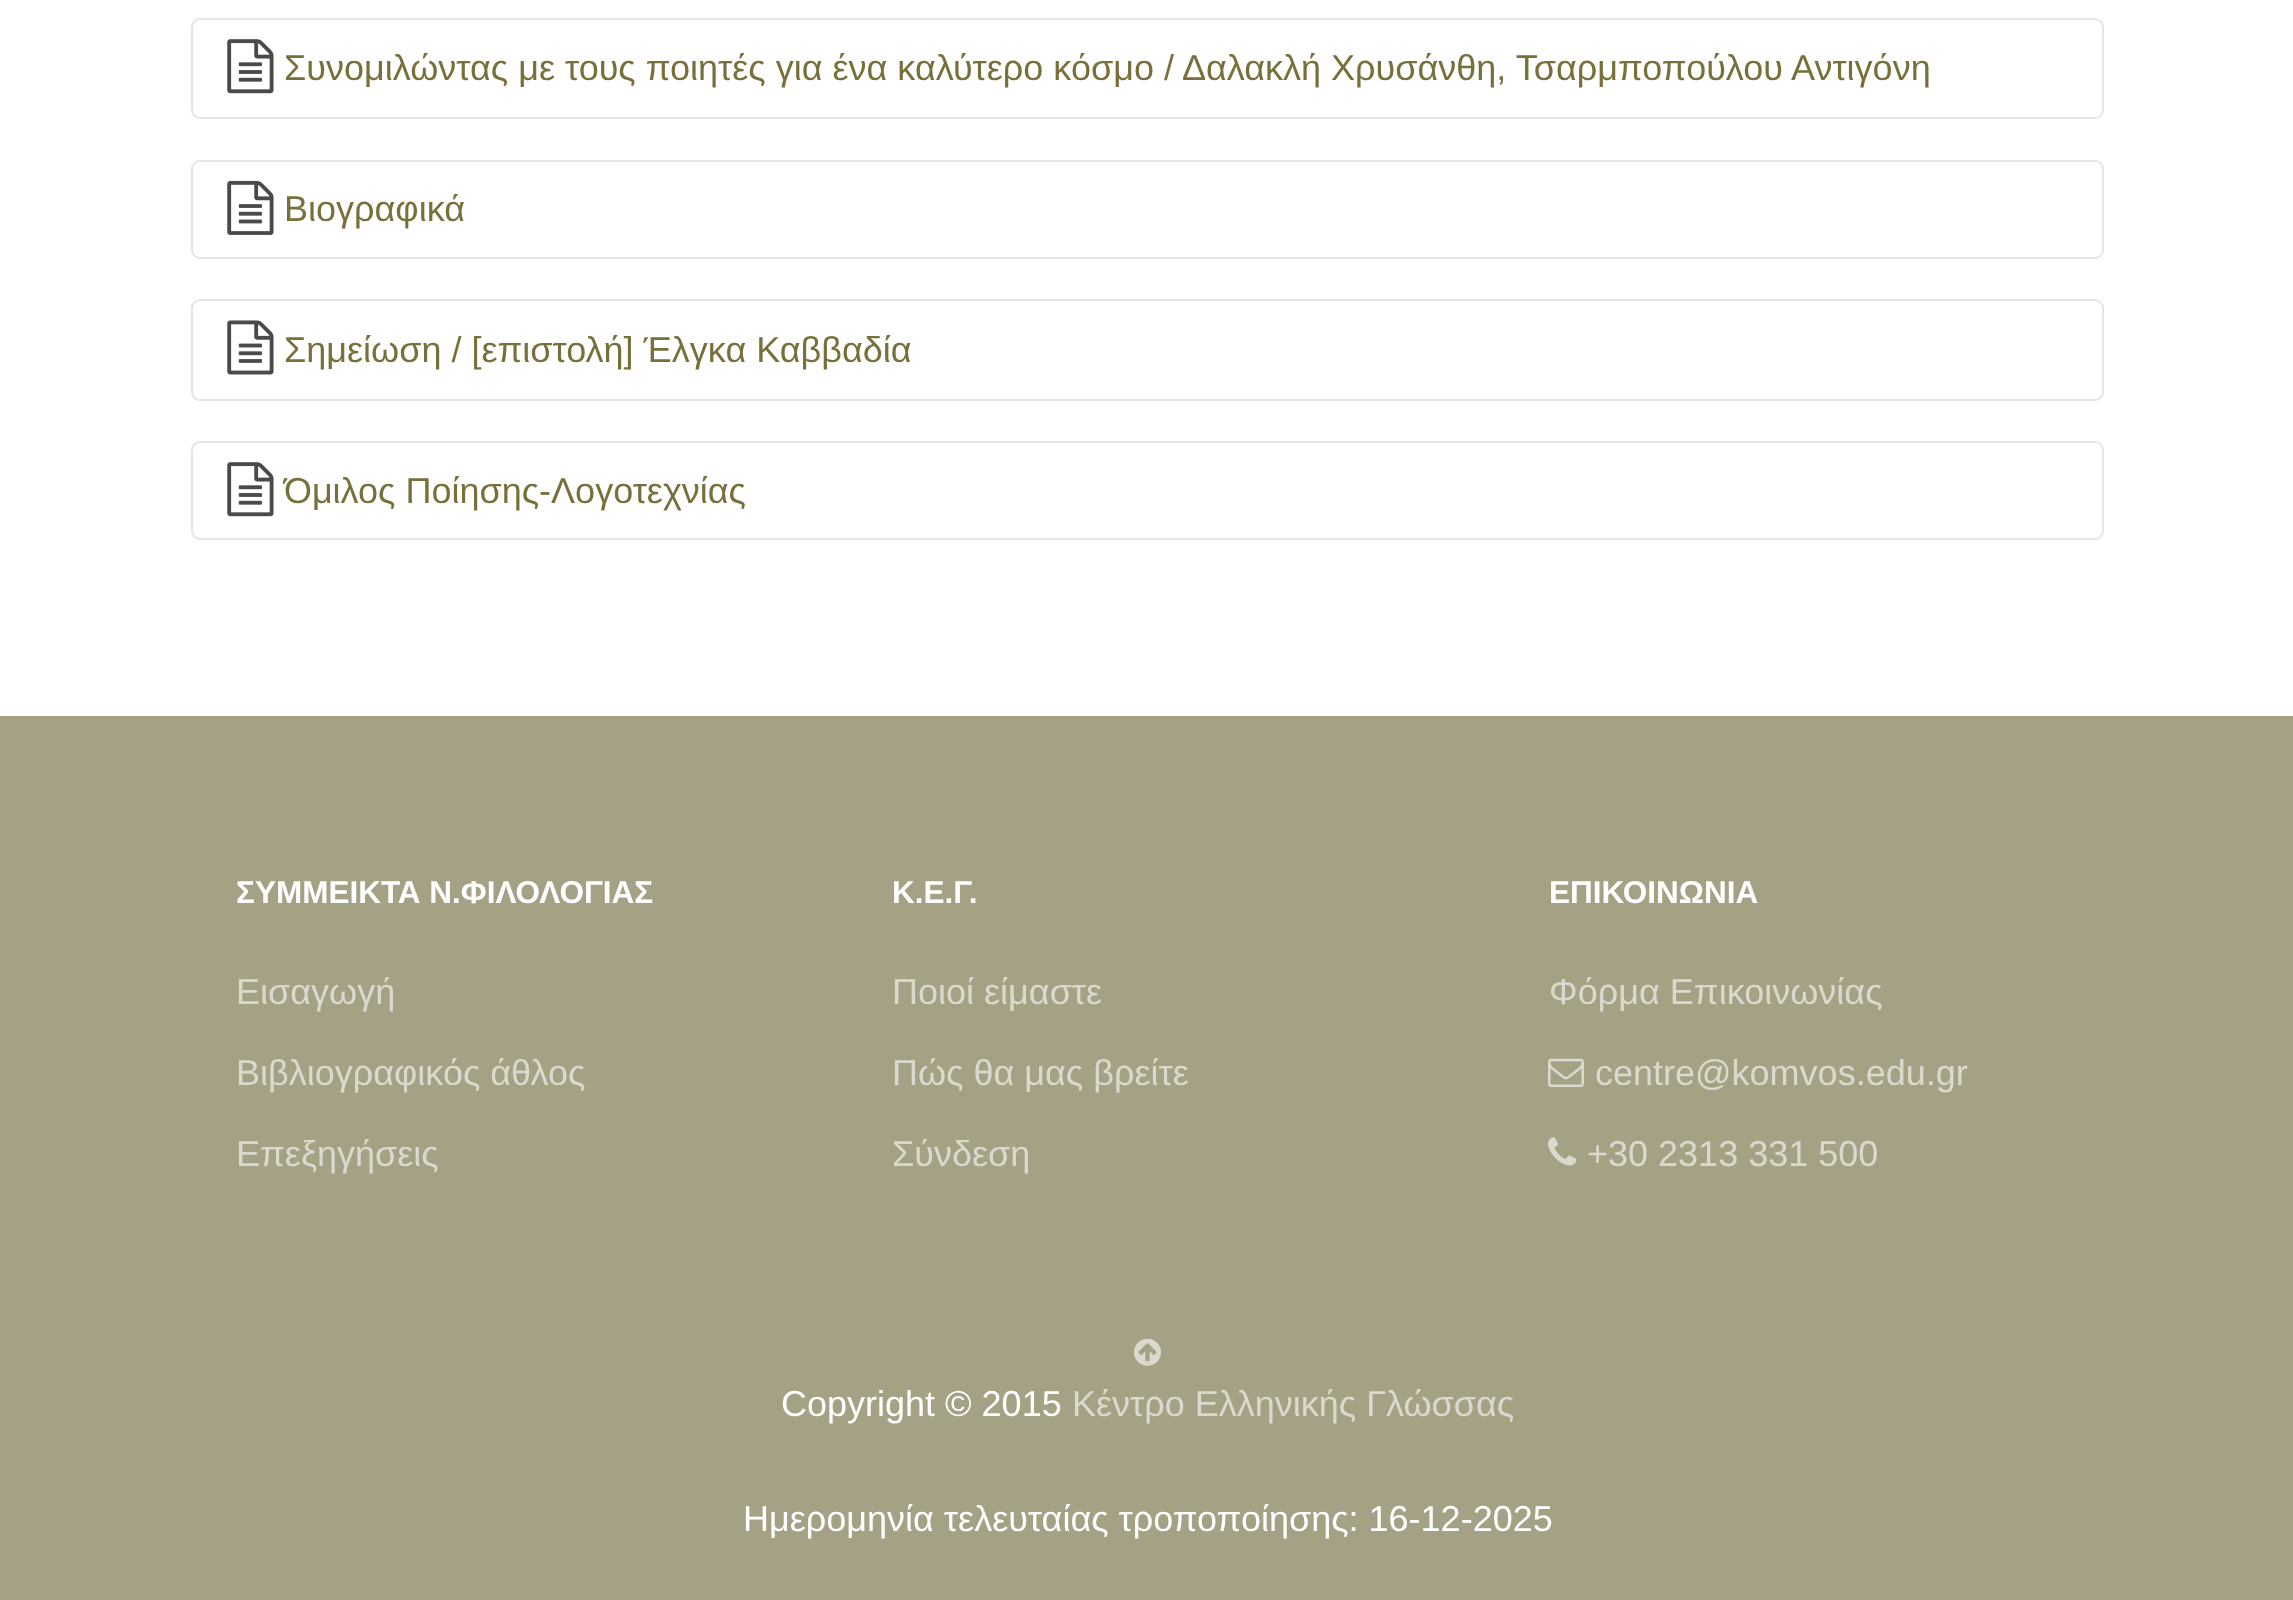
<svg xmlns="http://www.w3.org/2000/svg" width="2293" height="1600">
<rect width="100%" height="100%" fill="#fff"/>
<rect x="192" y="19" width="1911" height="99" rx="8" fill="none" stroke="#e5e5e5" stroke-width="2"/>
<image x="227" y="39" width="47" height="55" href="media/1.png"/>
<text x="284" y="80" style="font-family:Liberation Sans;font-size:36px;fill:#78703a">Συνομιλώντας με τους ποιητές για ένα καλύτερο κόσμο / Δαλακλή Χρυσάνθη, Τσαρμποπούλου Αντιγόνη</text>
<rect x="192" y="161" width="1911" height="97" rx="8" fill="none" stroke="#e5e5e5" stroke-width="2"/>
<image x="227" y="180" width="47" height="55" href="media/2.png"/>
<text x="284" y="221" style="font-family:Liberation Sans;font-size:36px;fill:#78703a">Βιογραφικά</text>
<rect x="192" y="300" width="1911" height="100" rx="8" fill="none" stroke="#e5e5e5" stroke-width="2"/>
<image x="227" y="320" width="47" height="55" href="media/3.png"/>
<text x="284" y="362" style="font-family:Liberation Sans;font-size:36px;fill:#78703a">Σημείωση / [επιστολή] Έλγκα Καββαδία</text>
<rect x="192" y="442" width="1911" height="97" rx="8" fill="none" stroke="#e5e5e5" stroke-width="2"/>
<image x="227" y="462" width="47" height="55" href="media/1.png"/>
<text x="284" y="503" style="font-family:Liberation Sans;font-size:36px;fill:#78703a">Όμιλος Ποίησης-Λογοτεχνίας</text>
<rect y="716" width="2293" height="884" fill="#a5a184"/>
<text x="236" y="903" style="font-family:Liberation Sans;font-size:31.5px;font-weight:bold;fill:#fff">ΣΥΜΜΕΙΚΤΑ Ν.ΦΙΛΟΛΟΓΙΑΣ</text>
<text x="236" y="1004" style="font-family:Liberation Sans;font-size:36px;fill:#dbd9ce">Εισαγωγή</text>
<text x="236" y="1085" style="font-family:Liberation Sans;font-size:36px;fill:#dbd9ce">Βιβλιογραφικός άθλος</text>
<text x="236" y="1166" style="font-family:Liberation Sans;font-size:36px;fill:#dbd9ce">Επεξηγήσεις</text>
<text x="892" y="903" style="font-family:Liberation Sans;font-size:31.5px;font-weight:bold;fill:#fff">Κ.Ε.Γ.</text>
<text x="892" y="1004" style="font-family:Liberation Sans;font-size:36px;fill:#dbd9ce">Ποιοί είμαστε</text>
<text x="892" y="1085" style="font-family:Liberation Sans;font-size:36px;fill:#dbd9ce">Πώς θα μας βρείτε</text>
<text x="892" y="1166" style="font-family:Liberation Sans;font-size:36px;fill:#dbd9ce">Σύνδεση</text>
<text x="1549" y="903" style="font-family:Liberation Sans;font-size:31.5px;font-weight:bold;fill:#fff">ΕΠΙΚΟΙΝΩΝΙΑ</text>
<text x="1549" y="1004" style="font-family:Liberation Sans;font-size:36px;fill:#dbd9ce">Φόρμα Επικοινωνίας</text>
<image x="1548" y="1058" width="36" height="30" href="media/4.png"/>
<text x="1595" y="1085" style="font-family:Liberation Sans;font-size:36px;fill:#dbd9ce">centre@komvos.edu.gr</text>
<image x="1548" y="1137" width="29" height="29" href="media/5.png"/>
<text x="1587" y="1166" style="font-family:Liberation Sans;font-size:36px;fill:#dbd9ce">+30 2313 331 500</text>
<image x="1134" y="1338" width="27" height="28" href="media/6.png"/>
<text x="781" y="1416" style="font-family:Liberation Sans;font-size:36px;fill:#fff">Copyright © 2015</text>
<text x="1072" y="1416" style="font-family:Liberation Sans;font-size:36px;fill:#dbd9ce">Κέντρο Ελληνικής Γλώσσας</text>
<text x="743" y="1531" style="font-family:Liberation Sans;font-size:36px;fill:#fff">Ημερομηνία τελευταίας τροποποίησης: 16-12-2025</text>
</svg>
